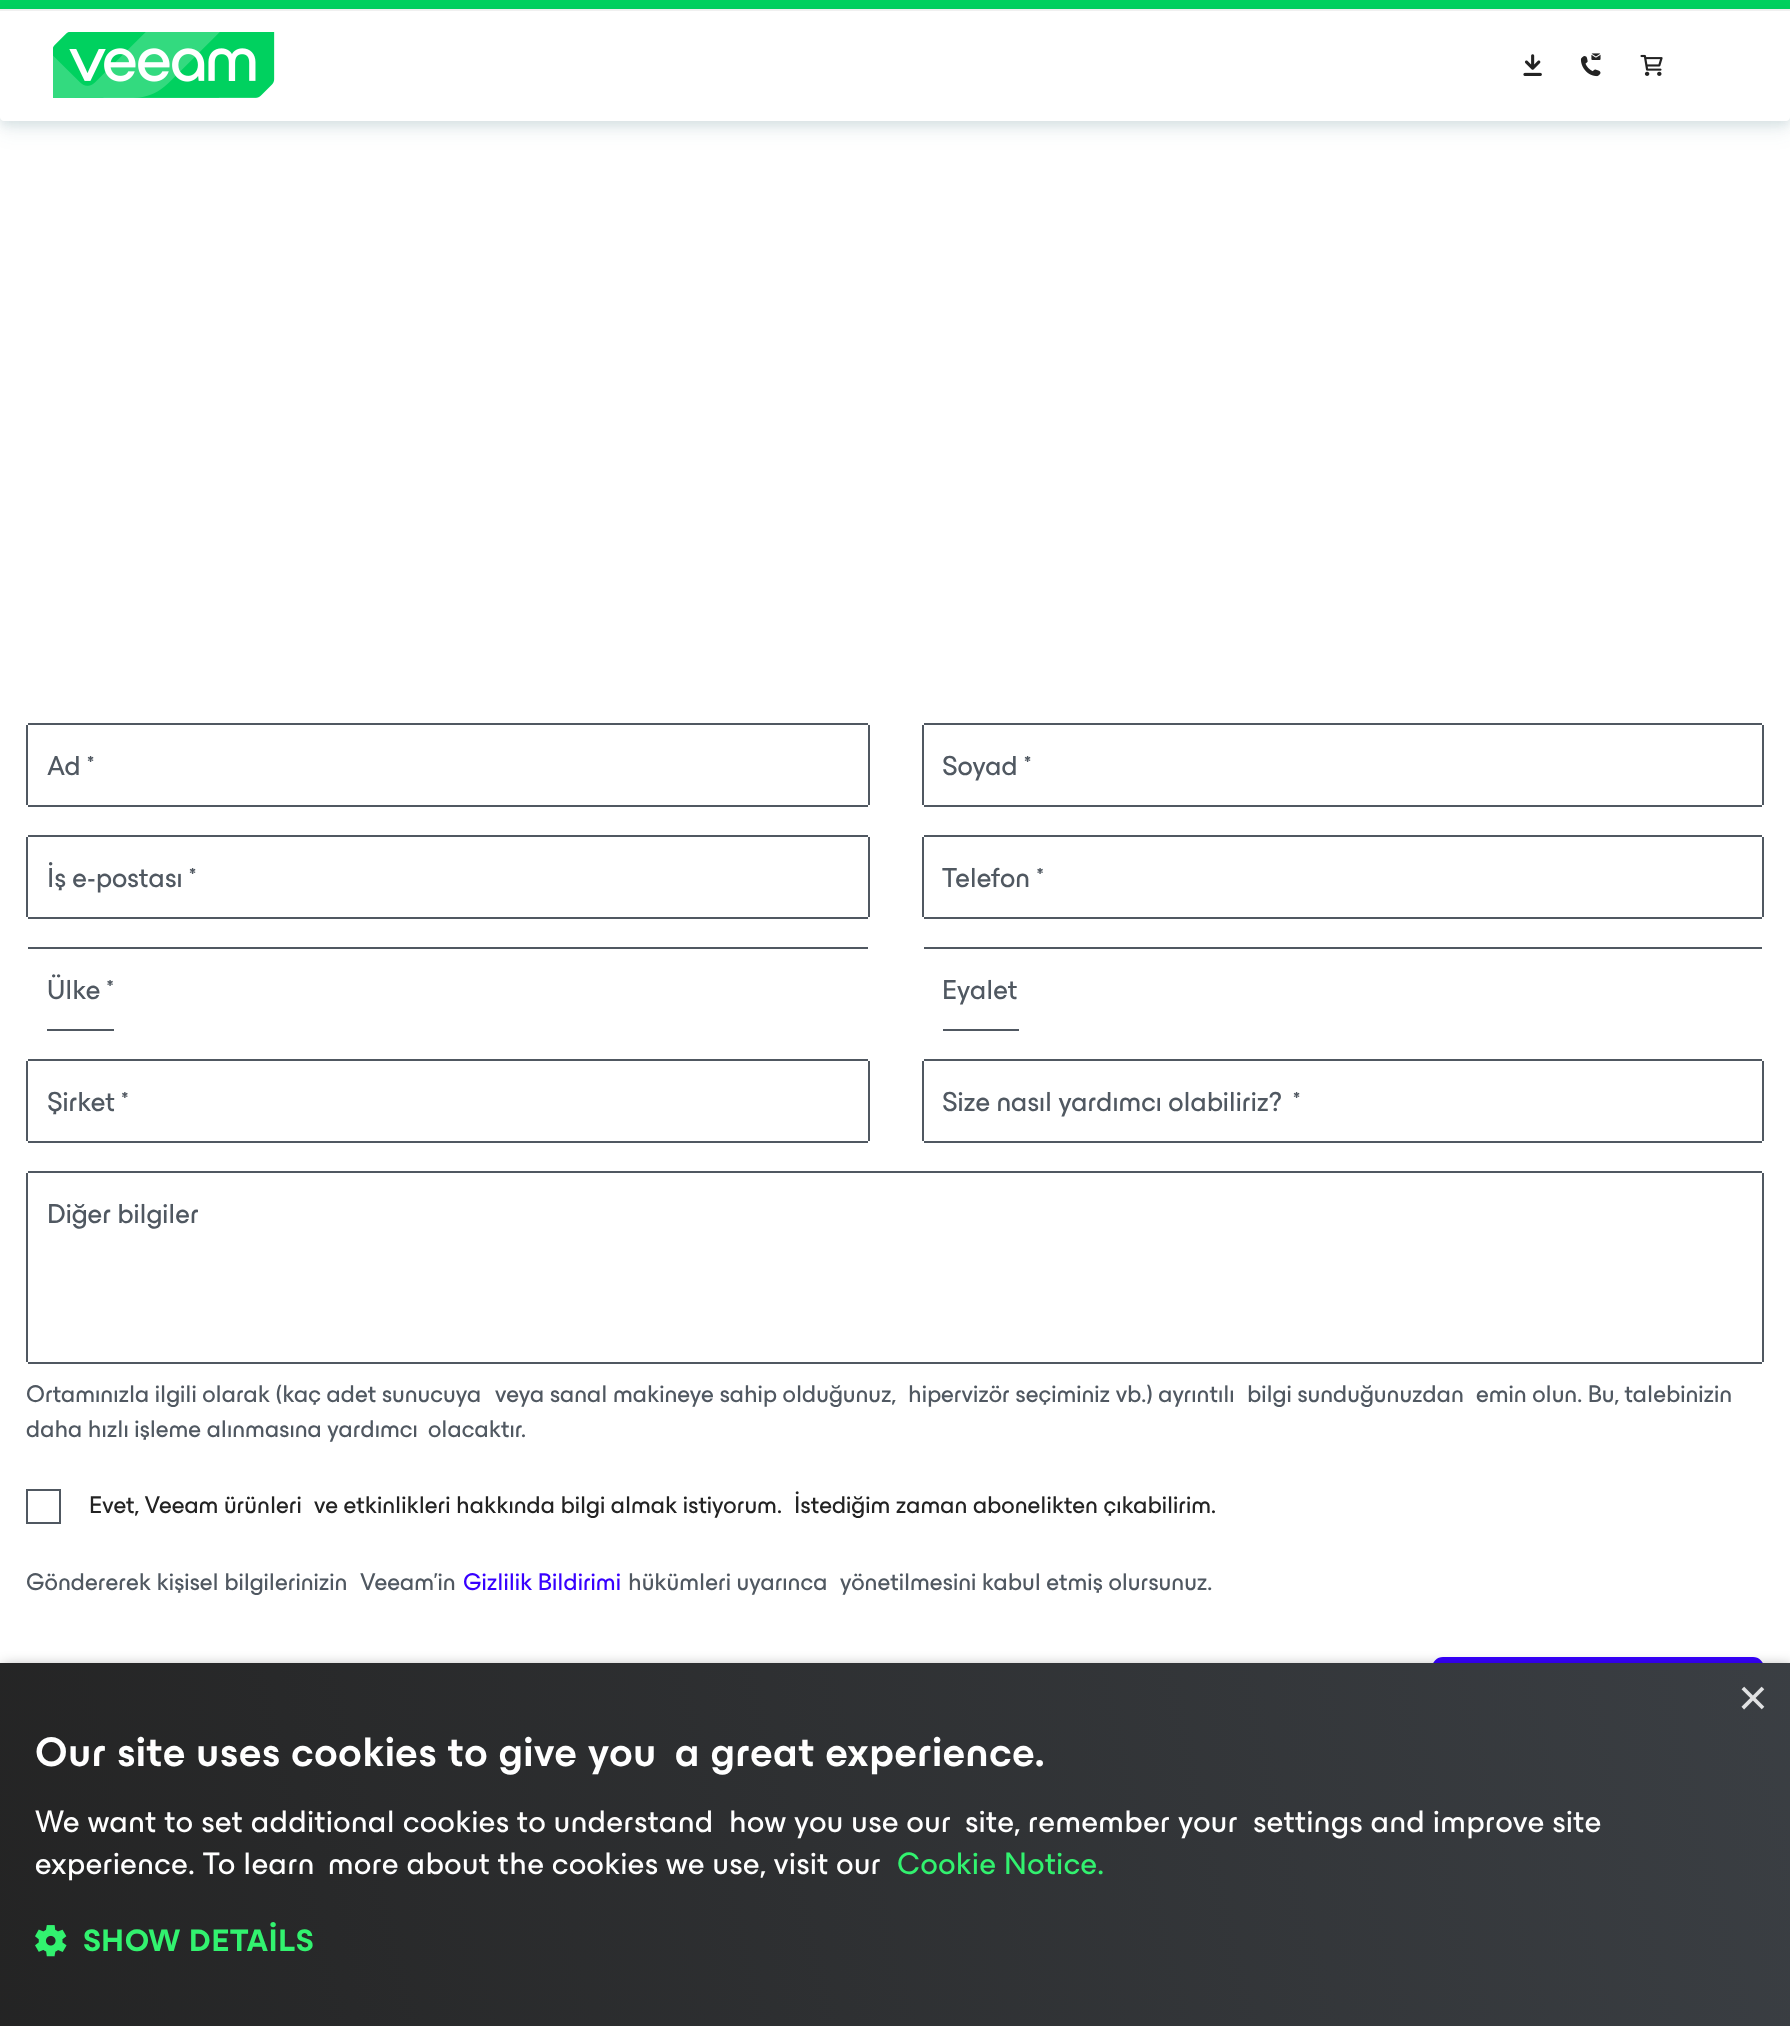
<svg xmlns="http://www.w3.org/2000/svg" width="1790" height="2026">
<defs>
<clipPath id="clip1"><path d="M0 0h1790v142h-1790zm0 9h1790v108c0 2-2 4-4 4h-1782c-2 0-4-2-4-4z" clip-rule="evenodd"/></clipPath>
<clipPath id="clip2"><path d="M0 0h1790v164h-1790zm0 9h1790v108c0 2-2 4-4 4h-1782c-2 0-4-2-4-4z" clip-rule="evenodd"/></clipPath>
<linearGradient id="g1" gradientUnits="userSpaceOnUse" x1="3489" y1="1246" x2="-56" y2="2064"><stop offset="0" stop-color="#505861"/><stop offset="1" stop-color="#232323"/></linearGradient>
</defs>
<rect width="100%" height="100%" fill="#fff"/>
<rect width="1790" height="9" fill="#00d15f"/>
<g clip-path="url(#clip1)">
<rect y="14" width="1790" height="112" rx="4" fill="#03455017" filter="blur(5px)"/>
</g>
<g clip-path="url(#clip2)">
<rect y="19" width="1790" height="112" rx="4" fill="#00455012" filter="blur(10.5px)"/>
</g>
<rect y="9" width="1790" height="2" fill="#f0f0f0"/>
<image x="53" y="32" width="222" height="66" href="media/1.png"/>
<image x="1523" y="54" width="19" height="22" href="media/2.png"/>
<image x="1580" y="53" width="21" height="24" href="media/3.png"/>
<image x="1640" y="54" width="23" height="22" href="media/4.png"/>
<rect x="868" y="725" width="2" height="80" fill="#505861"/>
<rect x="28" y="805" width="840" height="2" fill="#505861"/>
<rect x="26" y="725" width="2" height="80" fill="#505861"/>
<rect x="28" y="723" width="840" height="2" fill="#505861"/>
<text x="47" y="775" style="font-family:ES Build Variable;font-size:28px;fill:#505861">Ad *</text>
<rect x="1762" y="725" width="2" height="80" fill="#505861"/>
<rect x="924" y="805" width="838" height="2" fill="#505861"/>
<rect x="922" y="725" width="2" height="80" fill="#505861"/>
<rect x="924" y="723" width="838" height="2" fill="#505861"/>
<text x="942" y="775" style="font-family:ES Build Variable;font-size:28px;fill:#505861">Soyad *</text>
<rect x="868" y="837" width="2" height="80" fill="#505861"/>
<rect x="28" y="917" width="840" height="2" fill="#505861"/>
<rect x="26" y="837" width="2" height="80" fill="#505861"/>
<rect x="28" y="835" width="840" height="2" fill="#505861"/>
<text x="47" y="887" style="font-family:ES Build Variable;font-size:28px;fill:#505861">İş e-postası *</text>
<rect x="1762" y="837" width="2" height="80" fill="#505861"/>
<rect x="924" y="917" width="838" height="2" fill="#505861"/>
<rect x="922" y="837" width="2" height="80" fill="#505861"/>
<rect x="924" y="835" width="838" height="2" fill="#505861"/>
<text x="942" y="887" style="font-family:ES Build Variable;font-size:28px;fill:#505861">Telefon *</text>
<rect x="28" y="947" width="840" height="2" fill="#505861"/>
<rect x="47" y="1029" width="67" height="2" fill="#505861"/>
<text x="47" y="999" style="font-family:ES Build Variable;font-size:28px;fill:#505861">Ülke *</text>
<rect x="924" y="947" width="838" height="2" fill="#505861"/>
<rect x="943" y="1029" width="76" height="2" fill="#505861"/>
<text x="942" y="999" style="font-family:ES Build Variable;font-size:28px;fill:#505861">Eyalet</text>
<rect x="868" y="1061" width="2" height="80" fill="#505861"/>
<rect x="28" y="1141" width="840" height="2" fill="#505861"/>
<rect x="26" y="1061" width="2" height="80" fill="#505861"/>
<rect x="28" y="1059" width="840" height="2" fill="#505861"/>
<text x="47" y="1111" style="font-family:ES Build Variable;font-size:28px;fill:#505861">Şirket *</text>
<rect x="1762" y="1061" width="2" height="80" fill="#505861"/>
<rect x="924" y="1141" width="838" height="2" fill="#505861"/>
<rect x="922" y="1061" width="2" height="80" fill="#505861"/>
<rect x="924" y="1059" width="838" height="2" fill="#505861"/>
<text x="942" y="1111" style="font-family:ES Build Variable;font-size:28px;fill:#505861">Size nasıl yardımcı olabiliriz?</text>
<text x="1293" y="1111" style="font-family:ES Build Variable;font-size:28px;fill:#505861">*</text>
<rect x="1762" y="1173" width="2" height="189" fill="#505861"/>
<rect x="28" y="1362" width="1734" height="2" fill="#505861"/>
<rect x="26" y="1173" width="2" height="189" fill="#505861"/>
<rect x="28" y="1171" width="1734" height="2" fill="#505861"/>
<text x="47" y="1223" style="font-family:ES Build Variable;font-size:28px;fill:#505861">Diğer bilgiler</text>
<text x="26" y="1402" style="font-family:ES Build Variable;font-size:24.5px;fill:#505861">Ortamınızla ilgili olarak (kaç adet sunucuya</text>
<text x="495" y="1402" style="font-family:ES Build Variable;font-size:24.5px;fill:#505861">veya sanal makineye sahip olduğunuz,</text>
<text x="908" y="1402" style="font-family:ES Build Variable;font-size:24.5px;fill:#505861">hipervizör seçiminiz vb.) ayrıntılı</text>
<text x="1247" y="1402" style="font-family:ES Build Variable;font-size:24.5px;fill:#505861">bilgi sunduğunuzdan</text>
<text x="1476" y="1402" style="font-family:ES Build Variable;font-size:24.5px;fill:#505861">emin olun. Bu, talebinizin</text>
<text x="26" y="1437" style="font-family:ES Build Variable;font-size:24.5px;fill:#505861">daha hızlı işleme alınmasına yardımcı</text>
<text x="428" y="1437" style="font-family:ES Build Variable;font-size:24.5px;fill:#505861">olacaktır.</text>
<rect x="27" y="1490" width="33" height="33" fill="none" stroke="#505861" stroke-width="2"/>
<text x="89" y="1513" style="font-family:ES Build Variable;font-size:24.5px;fill:#232323">Evet, Veeam ürünleri</text>
<text x="314" y="1513" style="font-family:ES Build Variable;font-size:24.5px;fill:#232323">ve etkinlikleri hakkında bilgi almak istiyorum.</text>
<text x="794" y="1513" style="font-family:ES Build Variable;font-size:24.5px;fill:#232323">İstediğim zaman abonelikten çıkabilirim.</text>
<text x="26" y="1590" style="font-family:ES Build Variable;font-size:24.5px;fill:#505861">Göndererek kişisel bilgilerinizin</text>
<text x="360" y="1590" style="font-family:ES Build Variable;font-size:24.5px;fill:#505861">Veeam'in</text>
<text x="463" y="1590" style="font-family:ES Build Variable;font-size:24.5px;fill:#3700ff">Gizlilik Bildirimi</text>
<text x="628" y="1590" style="font-family:ES Build Variable;font-size:24.5px;fill:#505861">hükümleri uyarınca</text>
<text x="840" y="1590" style="font-family:ES Build Variable;font-size:24.5px;fill:#505861">yönetilmesini kabul etmiş olursunuz.</text>
<rect x="1434" y="1659" width="328" height="80" rx="9" fill="#3700ff" stroke="#3700ff" stroke-width="4"/>
<rect x="2" y="1666" width="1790" height="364" fill="#00000059" filter="blur(7px)"/>
<rect y="1663" width="1790" height="363" fill="url(#g1)"/>
<text x="1738" y="1715" style="font-family:Liberation Sans;font-size:51px;fill:#e1e2e3">×</text>
<text x="35" y="1766" style="font-family:ES Build Variable;font-size:42px;font-weight:600;letter-spacing:0.7px;fill:#fff">Our site uses cookies to give you</text>
<text x="675" y="1766" style="font-family:ES Build Variable;font-size:42px;font-weight:600;letter-spacing:0.7px;fill:#fff">a great experience.</text>
<text x="35" y="1832" style="font-family:ES Build Variable;font-size:31.5px;letter-spacing:0.53px;fill:#fff">We want to set additional cookies to understand</text>
<text x="729" y="1832" style="font-family:ES Build Variable;font-size:31.5px;letter-spacing:0.53px;fill:#fff">how you use our</text>
<text x="965" y="1832" style="font-family:ES Build Variable;font-size:31.5px;letter-spacing:0.53px;fill:#fff">site, remember your</text>
<text x="1253" y="1832" style="font-family:ES Build Variable;font-size:31.5px;letter-spacing:0.53px;fill:#fff">settings and improve site</text>
<text x="35" y="1874" style="font-family:ES Build Variable;font-size:31.5px;letter-spacing:0.53px;fill:#fff">experience. To learn</text>
<text x="328" y="1874" style="font-family:ES Build Variable;font-size:31.5px;letter-spacing:0.53px;fill:#fff">more about the cookies we use, visit our</text>
<text x="897" y="1874" style="font-family:ES Build Variable;font-size:31.5px;letter-spacing:0.53px;fill:#32f26f">Cookie Notice.</text>
<image x="35" y="1925" width="32" height="32" href="media/5.png"/>
<text x="83" y="1951" style="font-family:ES Build Variable;font-size:31.5px;font-weight:bold;letter-spacing:0.7px;fill:#32f26f">SHOW DETAİLS</text>
</svg>
